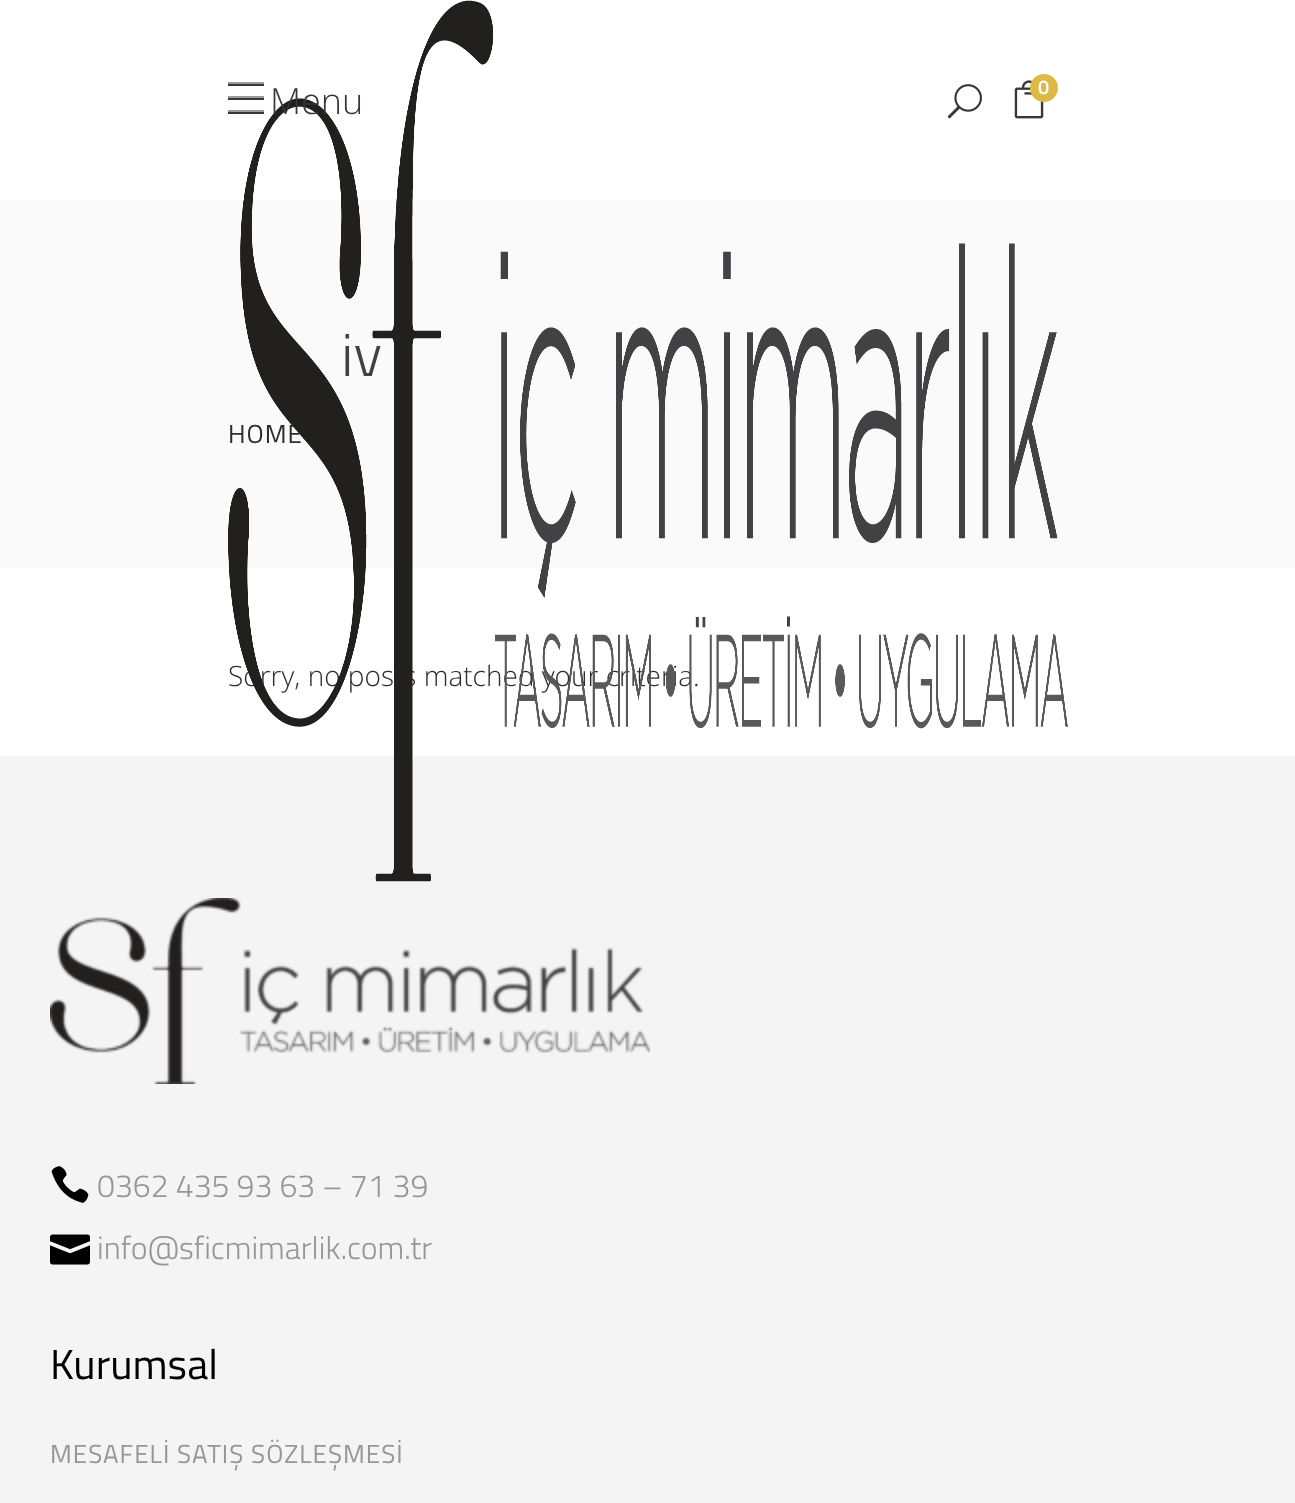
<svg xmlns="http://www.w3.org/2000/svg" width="1295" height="1503">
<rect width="100%" height="100%" fill="#fff"/>
<rect y="200" width="1295" height="368" fill="#fafafa"/>
<text x="341" y="376" style="font-family:Titillium Web;font-size:60px;font-weight:300;fill:#414042">iv</text>
<text x="228" y="443" style="font-family:Titillium Web;font-size:26px;letter-spacing:1px;fill:#2d2d2d">HOME</text>
<text x="228" y="686" style="font-family:Open Sans;font-size:28px;font-weight:300;fill:#2d2d2d">Sorry, no posts matched your criteria.</text>
<rect y="756" width="1295" height="747" fill="#f4f4f4"/>
<image x="228" y="0" width="840" height="882" href="media/1.png"/>
<rect x="228" y="84" width="36" height="2" fill="#373737"/>
<rect x="228" y="82" width="36" height="2" fill="#9b9b9b"/>
<rect x="228" y="98" width="36" height="2" fill="#373737"/>
<rect x="228" y="96" width="36" height="2" fill="#9b9b9b"/>
<rect x="228" y="112" width="36" height="2" fill="#373737"/>
<rect x="228" y="110" width="36" height="2" fill="#9b9b9b"/>
<text x="270" y="114" style="font-family:Open Sans;font-size:36px;font-weight:300;fill:#373737">Menu</text>
<image x="947" y="84" width="35" height="35" href="media/2.png"/>
<image x="1014" y="80" width="30" height="39" href="media/3.png"/>
<circle cx="1044" cy="88" r="14" fill="#dfb947"/>
<text x="1038" y="94" style="font-family:Titillium Web;font-size:20px;font-weight:600;fill:#fff">0</text>
<image x="50" y="898" width="600" height="186" href="media/4.png"/>
<image x="51" y="1166" width="38" height="37" href="media/5.png"/>
<text x="97" y="1197" style="font-family:Titillium Web;font-size:32px;font-weight:300;fill:#969696">0362 435 93 63 – 71 39</text>
<image x="50" y="1234" width="40" height="31" href="media/6.png"/>
<text x="97" y="1259" style="font-family:Titillium Web;font-size:32px;font-weight:300;fill:#969696">info@sficmimarlik.com.tr</text>
<text x="50" y="1379" style="font-family:Titillium Web;font-size:42px;fill:#000">Kurumsal</text>
<text x="50" y="1463" style="font-family:Titillium Web;font-size:26px;letter-spacing:1px;fill:#969696">MESAFELİ SATIŞ SÖZLEŞMESİ</text>
</svg>
